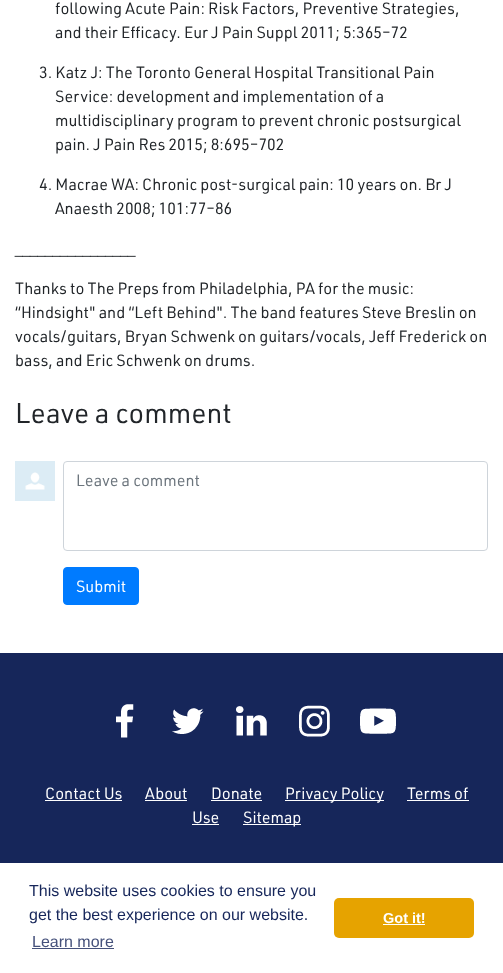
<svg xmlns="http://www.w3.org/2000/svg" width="503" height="973">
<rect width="100%" height="100%" fill="#fff"/>
<text x="55" y="14" style="font-family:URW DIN;font-size:16px;fill:#212529">following Acute Pain: Risk Factors, Preventive Strategies,</text>
<text x="55" y="38" style="font-family:URW DIN;font-size:16px;fill:#212529">and their Efficacy. Eur J Pain Suppl 2011; 5:365–72</text>
<text x="39" y="78" style="font-family:URW DIN;font-size:16px;fill:#212529">3. Katz J: The Toronto General Hospital Transitional Pain</text>
<text x="55" y="102" style="font-family:URW DIN;font-size:16px;fill:#212529">Service: development and implementation of a</text>
<text x="55" y="126" style="font-family:URW DIN;font-size:16px;fill:#212529">multidisciplinary program to prevent chronic postsurgical</text>
<text x="55" y="150" style="font-family:URW DIN;font-size:16px;fill:#212529">pain. J Pain Res 2015; 8:695–702</text>
<text x="39" y="190" style="font-family:URW DIN;font-size:16px;fill:#212529">4. Macrae WA: Chronic post-surgical pain: 10 years on. Br J</text>
<text x="55" y="214" style="font-family:URW DIN;font-size:16px;fill:#212529">Anaesth 2008; 101:77–86</text>
<text x="15" y="254" style="font-family:URW DIN;font-size:16px;fill:#212529">________________</text>
<text x="15" y="294" style="font-family:URW DIN;font-size:16px;fill:#212529">Thanks to The Preps from Philadelphia, PA for the music:</text>
<text x="15" y="318" style="font-family:URW DIN;font-size:16px;fill:#212529">“Hindsight" and “Left Behind". The band features Steve Breslin on</text>
<text x="15" y="342" style="font-family:URW DIN;font-size:16px;fill:#212529">vocals/guitars, Bryan Schwenk on guitars/vocals, Jeff Frederick on</text>
<text x="15" y="366" style="font-family:URW DIN;font-size:16px;fill:#212529">bass, and Eric Schwenk on drums.</text>
<text x="15" y="423" style="font-family:URW DIN;font-size:28px;fill:#212529">Leave a comment</text>
<image x="15" y="461" width="40" height="40" href="media/1.png"/>
<rect x="63.5" y="461.5" width="424" height="89" rx="3.5" fill="none" stroke="#ced4da"/>
<text x="76" y="486" style="font-family:URW DIN;font-size:16px;fill:#6c757d">Leave a comment</text>
<rect x="63.5" y="567.5" width="75" height="37" rx="3.5" fill="#007bff" stroke="#007bff"/>
<text x="76" y="592" style="font-family:URW DIN;font-size:16px;fill:#fff">Submit</text>
<rect y="653" width="503" height="210" fill="#16265a"/>
<image x="116" y="704" width="18" height="34" href="media/2.png"/>
<image x="172" y="708" width="32" height="26" href="media/3.png"/>
<image x="236" y="706" width="31" height="30" href="media/4.png"/>
<image x="299" y="705" width="31" height="32" href="media/5.png"/>
<image x="360" y="708" width="36" height="26" href="media/6.png"/>
<text x="45" y="799" style="font-family:URW DIN;font-size:16px;fill:#fff">Contact Us</text>
<rect x="45" y="800" width="77" height="1" fill="#fff"/>
<text x="145" y="799" style="font-family:URW DIN;font-size:16px;fill:#fff">About</text>
<rect x="145" y="800" width="42" height="1" fill="#fff"/>
<text x="211" y="799" style="font-family:URW DIN;font-size:16px;fill:#fff">Donate</text>
<rect x="211" y="800" width="51" height="1" fill="#fff"/>
<rect x="285" y="800" width="99" height="1" fill="#fff"/>
<text x="285" y="799" style="font-family:URW DIN;font-size:16px;fill:#fff">Privacy Policy</text>
<text x="407" y="799" style="font-family:URW DIN;font-size:16px;fill:#fff">Terms of</text>
<rect x="407" y="800" width="62" height="1" fill="#fff"/>
<text x="192" y="823" style="font-family:URW DIN;font-size:16px;fill:#fff">Use</text>
<rect x="192" y="824" width="27" height="1" fill="#fff"/>
<rect x="243" y="824" width="58" height="1" fill="#fff"/>
<text x="243" y="823" style="font-family:URW DIN;font-size:16px;fill:#fff">Sitemap</text>
<text x="29" y="896" style="font-family:Liberation Sans;font-size:16px;fill:#16265a">This website uses cookies to ensure you</text>
<text x="29" y="920" style="font-family:Liberation Sans;font-size:16px;fill:#16265a">get the best experience on our website.</text>
<text x="32" y="947" style="font-family:Liberation Sans;font-size:16px;fill:#45517b">Learn more</text>
<rect x="32" y="948" width="82" height="1" fill="#45517b"/>
<rect x="334" y="898" width="140" height="40" rx="5" fill="#e6a300"/>
<text x="383" y="923" style="font-family:Liberation Sans;font-size:14.5px;font-weight:bold;fill:#fff">Got it!</text>
<rect x="383" y="924" width="42" height="1" fill="#fff"/>
</svg>
